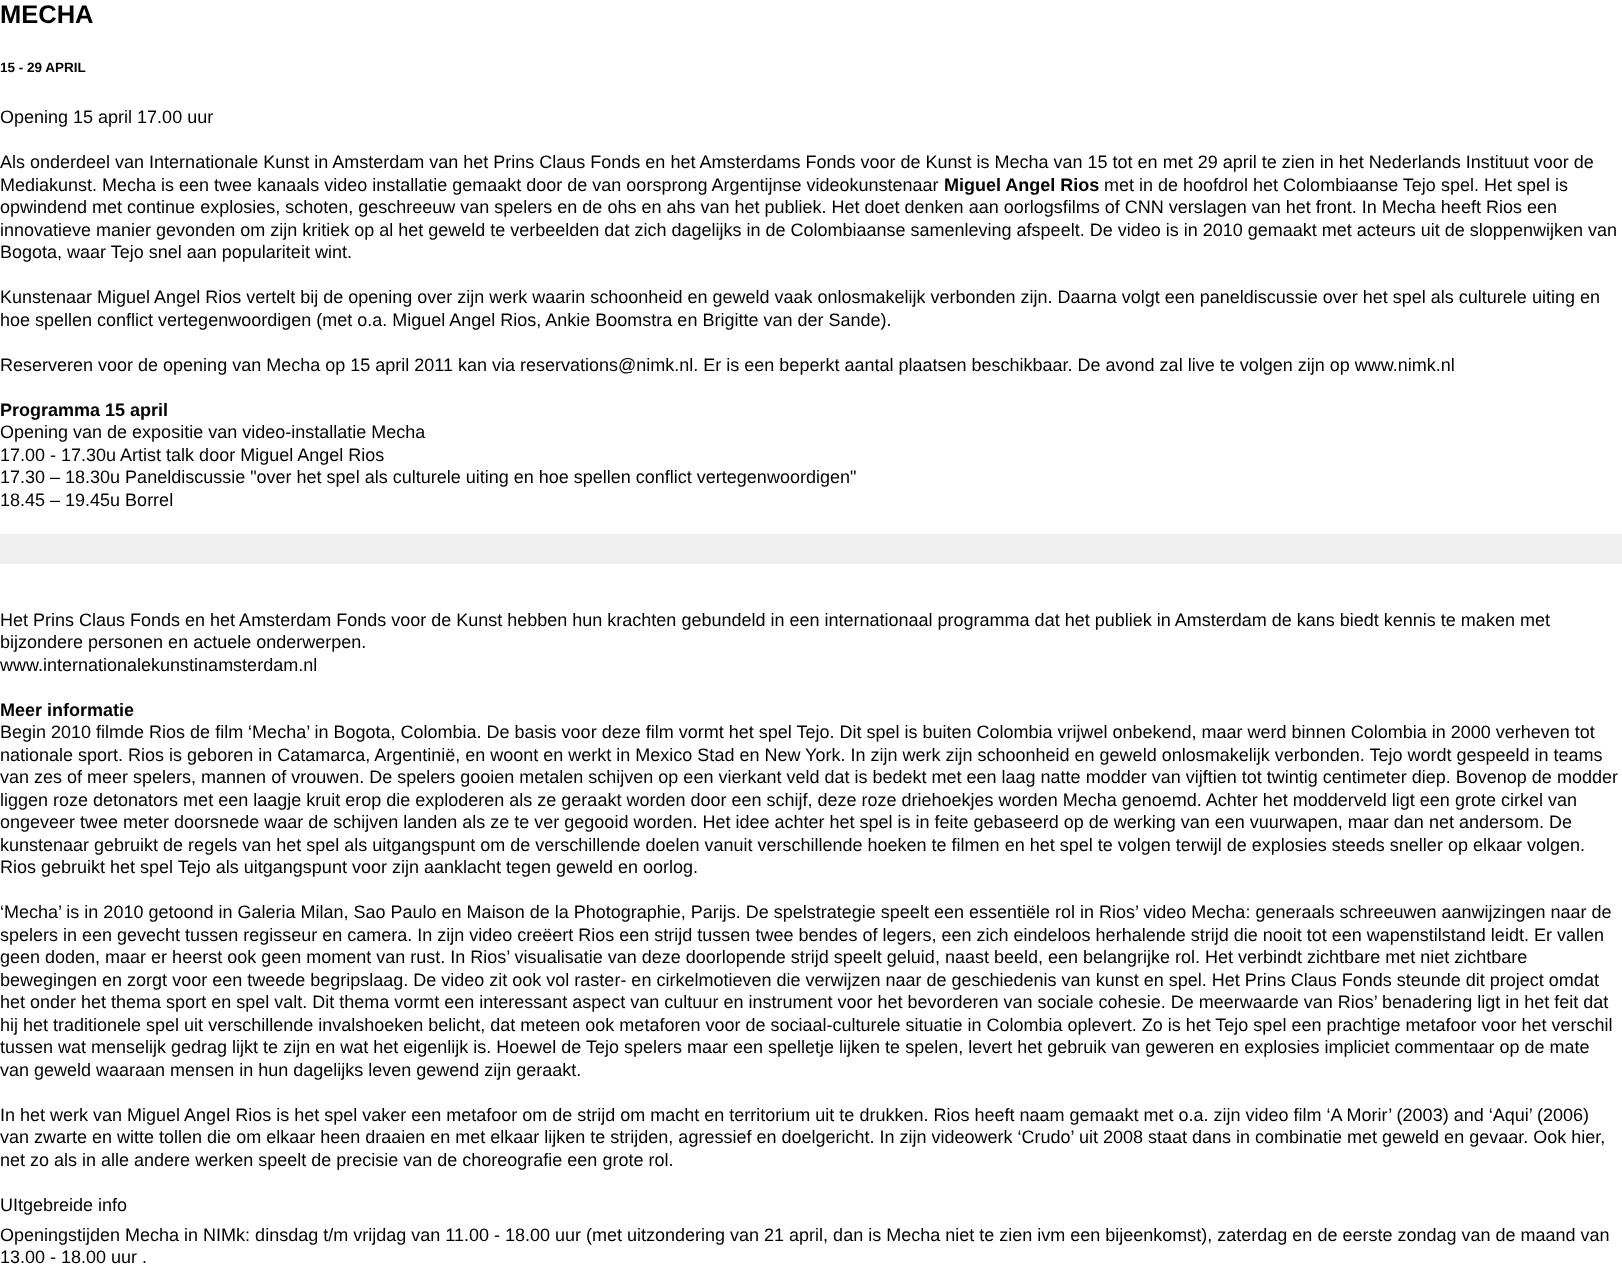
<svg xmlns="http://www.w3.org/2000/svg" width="1622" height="1279">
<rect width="100%" height="100%" fill="#fff"/>
<text x="0" y="23" style="font-family:Liberation Sans;font-size:25.5px;font-weight:bold;fill:#000">MECHA</text>
<text x="0" y="72" style="font-family:Liberation Sans;font-size:13.5px;font-weight:bold;fill:#000">15 - 29 APRIL</text>
<text x="0" y="123" style="font-family:Liberation Sans;font-size:18px;fill:#000">Opening 15 april 17.00 uur</text>
<text x="0" y="168" style="font-family:Liberation Sans;font-size:18px;fill:#000">Als onderdeel van Internationale Kunst in Amsterdam van het Prins Claus Fonds en het Amsterdams Fonds voor de Kunst is Mecha van 15 tot en met 29 april te zien in het Nederlands Instituut voor de</text>
<text x="0" y="191" style="font-family:Liberation Sans;font-size:18px;fill:#000">Mediakunst. Mecha is een twee kanaals video installatie gemaakt door de van oorsprong Argentijnse videokunstenaar</text>
<text x="944" y="191" style="font-family:Liberation Sans;font-size:18px;font-weight:bold;fill:#000">Miguel Angel Rios</text>
<text x="1104" y="191" style="font-family:Liberation Sans;font-size:18px;fill:#000">met in de hoofdrol het Colombiaanse Tejo spel. Het spel is</text>
<text x="0" y="213" style="font-family:Liberation Sans;font-size:18px;fill:#000">opwindend met continue explosies, schoten, geschreeuw van spelers en de ohs en ahs van het publiek. Het doet denken aan oorlogsfilms of CNN verslagen van het front. In Mecha heeft Rios een</text>
<text x="0" y="236" style="font-family:Liberation Sans;font-size:18px;fill:#000">innovatieve manier gevonden om zijn kritiek op al het geweld te verbeelden dat zich dagelijks in de Colombiaanse samenleving afspeelt. De video is in 2010 gemaakt met acteurs uit de sloppenwijken van</text>
<text x="0" y="258" style="font-family:Liberation Sans;font-size:18px;fill:#000">Bogota, waar Tejo snel aan populariteit wint.</text>
<text x="0" y="303" style="font-family:Liberation Sans;font-size:18px;fill:#000">Kunstenaar Miguel Angel Rios vertelt bij de opening over zijn werk waarin schoonheid en geweld vaak onlosmakelijk verbonden zijn. Daarna volgt een paneldiscussie over het spel als culturele uiting en</text>
<text x="0" y="326" style="font-family:Liberation Sans;font-size:18px;fill:#000">hoe spellen conflict vertegenwoordigen (met o.a. Miguel Angel Rios, Ankie Boomstra en Brigitte van der Sande).</text>
<text x="0" y="371" style="font-family:Liberation Sans;font-size:18px;fill:#000">Reserveren voor de opening van Mecha op 15 april 2011 kan via reservations@nimk.nl. Er is een beperkt aantal plaatsen beschikbaar. De avond zal live te volgen zijn op www.nimk.nl</text>
<text x="0" y="416" style="font-family:Liberation Sans;font-size:18px;font-weight:bold;fill:#000">Programma 15 april</text>
<text x="0" y="438" style="font-family:Liberation Sans;font-size:18px;fill:#000">Opening van de expositie van video-installatie Mecha</text>
<text x="0" y="461" style="font-family:Liberation Sans;font-size:18px;fill:#000">17.00 - 17.30u Artist talk door Miguel Angel Rios</text>
<text x="0" y="483" style="font-family:Liberation Sans;font-size:18px;fill:#000">17.30 – 18.30u Paneldiscussie "over het spel als culturele uiting en hoe spellen conflict vertegenwoordigen"</text>
<text x="0" y="506" style="font-family:Liberation Sans;font-size:18px;fill:#000">18.45 – 19.45u Borrel</text>
<rect y="534" width="1622" height="30" fill="#efefef"/>
<text x="0" y="626" style="font-family:Liberation Sans;font-size:18px;fill:#000">Het Prins Claus Fonds en het Amsterdam Fonds voor de Kunst hebben hun krachten gebundeld in een internationaal programma dat het publiek in Amsterdam de kans biedt kennis te maken met</text>
<text x="0" y="648" style="font-family:Liberation Sans;font-size:18px;fill:#000">bijzondere personen en actuele onderwerpen.</text>
<text x="0" y="671" style="font-family:Liberation Sans;font-size:18px;fill:#000">www.internationalekunstinamsterdam.nl</text>
<text x="0" y="716" style="font-family:Liberation Sans;font-size:18px;font-weight:bold;fill:#000">Meer informatie</text>
<text x="0" y="738" style="font-family:Liberation Sans;font-size:18px;fill:#000">Begin 2010 filmde Rios de film ‘Mecha’ in Bogota, Colombia. De basis voor deze film vormt het spel Tejo. Dit spel is buiten Colombia vrijwel onbekend, maar werd binnen Colombia in 2000 verheven tot</text>
<text x="0" y="761" style="font-family:Liberation Sans;font-size:18px;fill:#000">nationale sport. Rios is geboren in Catamarca, Argentinië, en woont en werkt in Mexico Stad en New York. In zijn werk zijn schoonheid en geweld onlosmakelijk verbonden. Tejo wordt gespeeld in teams</text>
<text x="0" y="783" style="font-family:Liberation Sans;font-size:18px;fill:#000">van zes of meer spelers, mannen of vrouwen. De spelers gooien metalen schijven op een vierkant veld dat is bedekt met een laag natte modder van vijftien tot twintig centimeter diep. Bovenop de modder</text>
<text x="0" y="806" style="font-family:Liberation Sans;font-size:18px;fill:#000">liggen roze detonators met een laagje kruit erop die exploderen als ze geraakt worden door een schijf, deze roze driehoekjes worden Mecha genoemd. Achter het modderveld ligt een grote cirkel van</text>
<text x="0" y="828" style="font-family:Liberation Sans;font-size:18px;fill:#000">ongeveer twee meter doorsnede waar de schijven landen als ze te ver gegooid worden. Het idee achter het spel is in feite gebaseerd op de werking van een vuurwapen, maar dan net andersom. De</text>
<text x="0" y="851" style="font-family:Liberation Sans;font-size:18px;fill:#000">kunstenaar gebruikt de regels van het spel als uitgangspunt om de verschillende doelen vanuit verschillende hoeken te filmen en het spel te volgen terwijl de explosies steeds sneller op elkaar volgen.</text>
<text x="0" y="873" style="font-family:Liberation Sans;font-size:18px;fill:#000">Rios gebruikt het spel Tejo als uitgangspunt voor zijn aanklacht tegen geweld en oorlog.</text>
<text x="0" y="918" style="font-family:Liberation Sans;font-size:18px;fill:#000">‘Mecha’ is in 2010 getoond in Galeria Milan, Sao Paulo en Maison de la Photographie, Parijs. De spelstrategie speelt een essentiële rol in Rios’ video Mecha: generaals schreeuwen aanwijzingen naar de</text>
<text x="0" y="941" style="font-family:Liberation Sans;font-size:18px;fill:#000">spelers in een gevecht tussen regisseur en camera. In zijn video creëert Rios een strijd tussen twee bendes of legers, een zich eindeloos herhalende strijd die nooit tot een wapenstilstand leidt. Er vallen</text>
<text x="0" y="963" style="font-family:Liberation Sans;font-size:18px;fill:#000">geen doden, maar er heerst ook geen moment van rust. In Rios’ visualisatie van deze doorlopende strijd speelt geluid, naast beeld, een belangrijke rol. Het verbindt zichtbare met niet zichtbare</text>
<text x="0" y="986" style="font-family:Liberation Sans;font-size:18px;fill:#000">bewegingen en zorgt voor een tweede begripslaag. De video zit ook vol raster- en cirkelmotieven die verwijzen naar de geschiedenis van kunst en spel. Het Prins Claus Fonds steunde dit project omdat</text>
<text x="0" y="1008" style="font-family:Liberation Sans;font-size:18px;fill:#000">het onder het thema sport en spel valt. Dit thema vormt een interessant aspect van cultuur en instrument voor het bevorderen van sociale cohesie. De meerwaarde van Rios’ benadering ligt in het feit dat</text>
<text x="0" y="1031" style="font-family:Liberation Sans;font-size:18px;fill:#000">hij het traditionele spel uit verschillende invalshoeken belicht, dat meteen ook metaforen voor de sociaal-culturele situatie in Colombia oplevert. Zo is het Tejo spel een prachtige metafoor voor het verschil</text>
<text x="0" y="1053" style="font-family:Liberation Sans;font-size:18px;fill:#000">tussen wat menselijk gedrag lijkt te zijn en wat het eigenlijk is. Hoewel de Tejo spelers maar een spelletje lijken te spelen, levert het gebruik van geweren en explosies impliciet commentaar op de mate</text>
<text x="0" y="1076" style="font-family:Liberation Sans;font-size:18px;fill:#000">van geweld waaraan mensen in hun dagelijks leven gewend zijn geraakt.</text>
<text x="0" y="1121" style="font-family:Liberation Sans;font-size:18px;fill:#000">In het werk van Miguel Angel Rios is het spel vaker een metafoor om de strijd om macht en territorium uit te drukken. Rios heeft naam gemaakt met o.a. zijn video film ‘A Morir’ (2003) and ‘Aqui’ (2006)</text>
<text x="0" y="1143" style="font-family:Liberation Sans;font-size:18px;fill:#000">van zwarte en witte tollen die om elkaar heen draaien en met elkaar lijken te strijden, agressief en doelgericht. In zijn videowerk ‘Crudo’ uit 2008 staat dans in combinatie met geweld en gevaar. Ook hier,</text>
<text x="0" y="1166" style="font-family:Liberation Sans;font-size:18px;fill:#000">net zo als in alle andere werken speelt de precisie van de choreografie een grote rol.</text>
<text x="0" y="1211" style="font-family:Liberation Sans;font-size:18px;fill:#000">UItgebreide info</text>
<text x="0" y="1241" style="font-family:Liberation Sans;font-size:18px;fill:#000">Openingstijden Mecha in NIMk: dinsdag t/m vrijdag van 11.00 - 18.00 uur (met uitzondering van 21 april, dan is Mecha niet te zien ivm een bijeenkomst), zaterdag en de eerste zondag van de maand van</text>
<text x="0" y="1263" style="font-family:Liberation Sans;font-size:18px;fill:#000">13.00 - 18.00 uur .</text>
</svg>
